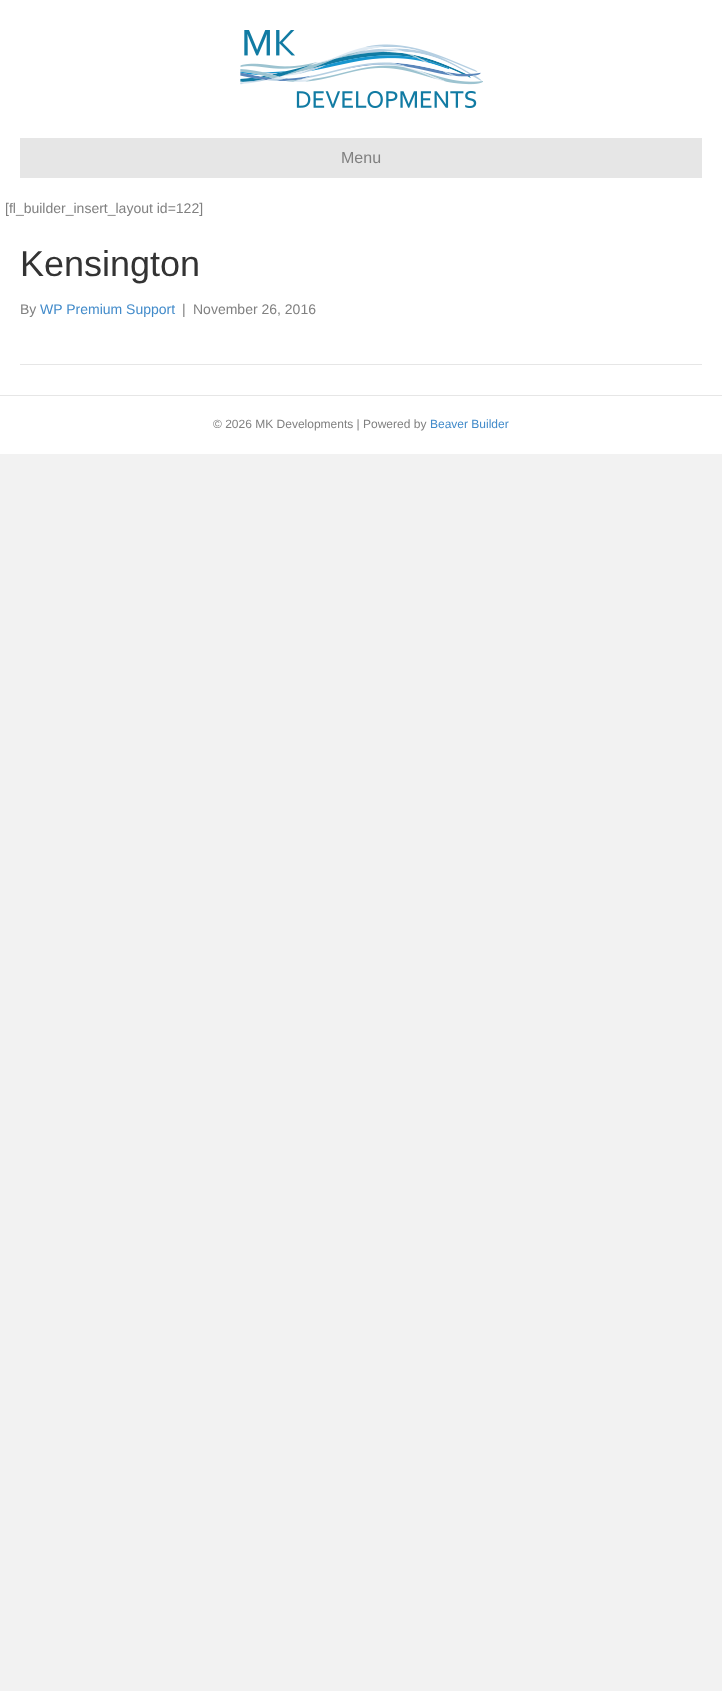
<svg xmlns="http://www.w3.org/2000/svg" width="722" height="1691">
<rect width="100%" height="100%" fill="#f2f2f2"/>
<rect width="722" height="395" fill="#fff"/>
<image x="240" y="30" width="243" height="78" href="media/1.png"/>
<rect x="20" y="138" width="682" height="40" fill="#e6e6e6"/>
<text x="341" y="163" style="font-family:Liberation Sans;font-size:16px;fill:#808080">Menu</text>
<text x="5" y="213" style="font-family:Liberation Sans;font-size:14px;fill:#808080">[fl_builder_insert_layout id=122]</text>
<text x="20" y="276" style="font-family:Liberation Sans;font-size:36px;fill:#333">Kensington</text>
<text x="20" y="314" style="font-family:Liberation Sans;font-size:14px;fill:#808080">By</text>
<text x="40" y="314" style="font-family:Liberation Sans;font-size:14px;fill:#428bca">WP Premium Support</text>
<text x="182" y="314" style="font-family:Liberation Sans;font-size:14px;fill:#808080">|</text>
<text x="193" y="314" style="font-family:Liberation Sans;font-size:14px;fill:#808080">November 26, 2016</text>
<rect x="20" y="364" width="682" height="1" fill="#e6e6e6"/>
<rect y="396" width="722" height="58" fill="#fff"/>
<rect y="395" width="722" height="1" fill="#e6e6e6"/>
<text x="213" y="428" style="font-family:Liberation Sans;font-size:12px;fill:#808080">© 2026 MK Developments | Powered by</text>
<text x="430" y="428" style="font-family:Liberation Sans;font-size:12px;fill:#428bca">Beaver Builder</text>
</svg>
